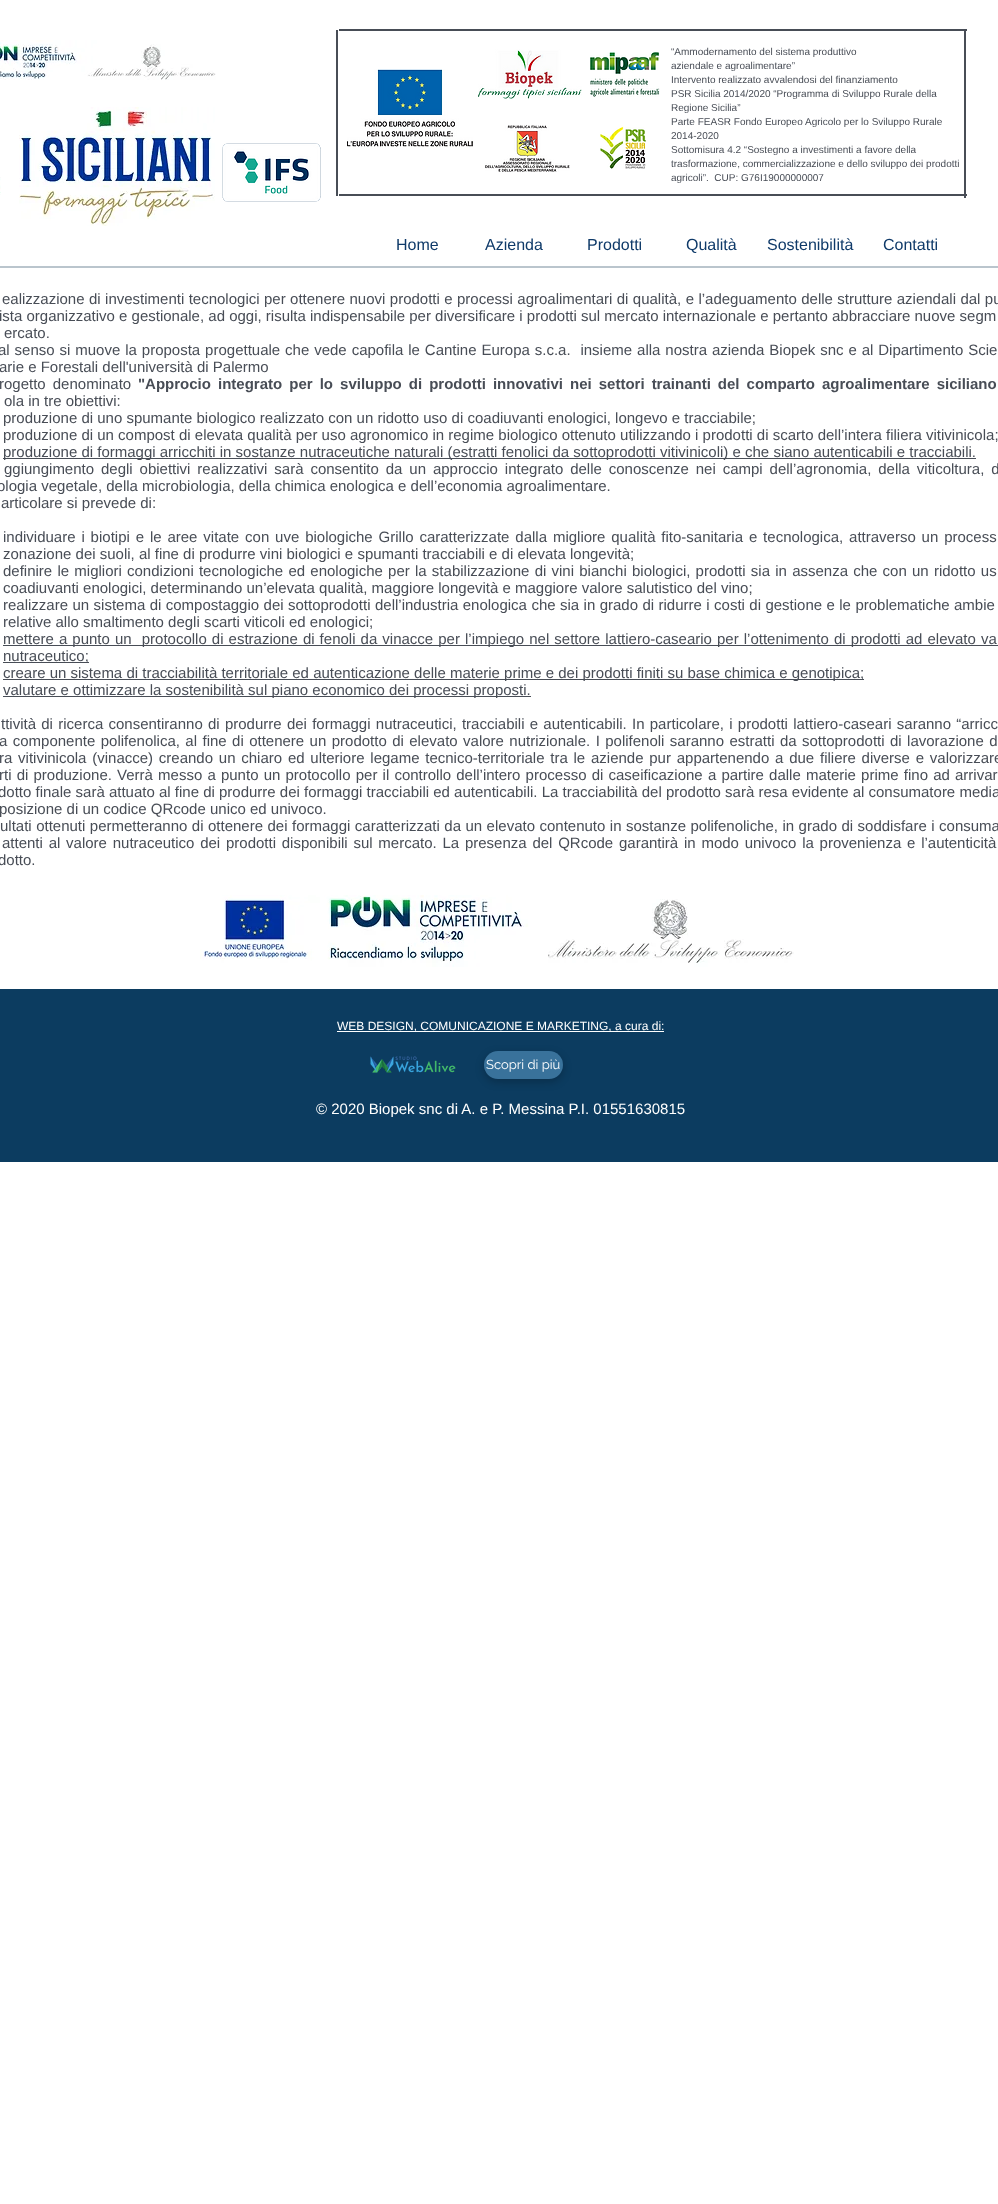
<svg xmlns="http://www.w3.org/2000/svg" width="998" height="2204">
<rect width="100%" height="100%" fill="#fff"/>
<rect x="336" y="30" width="2" height="166" fill="#484d56"/>
<rect x="339" y="29" width="628" height="2" fill="#484d56"/>
<image x="0" y="40" width="216" height="40" href="media/1.png"/>
<image x="347" y="69" width="126" height="78" href="media/2.png"/>
<image x="478" y="49" width="104" height="50" href="media/3.png"/>
<image x="590" y="52" width="70" height="45" href="media/4.png"/>
<image x="485" y="125" width="85" height="47" href="media/5.png"/>
<image x="600" y="125" width="46" height="44" href="media/6.png"/>
<text x="671" y="55" style="font-family:Liberation Sans;font-size:10px;fill:#484d56">“Ammodernamento del sistema produttivo</text>
<text x="671" y="69" style="font-family:Liberation Sans;font-size:10px;fill:#484d56">aziendale e agroalimentare”</text>
<text x="671" y="83" style="font-family:Liberation Sans;font-size:10px;fill:#484d56">Intervento realizzato avvalendosi del finanziamento</text>
<text x="671" y="97" style="font-family:Liberation Sans;font-size:10px;fill:#484d56">PSR Sicilia 2014/2020 “Programma di Sviluppo Rurale della</text>
<text x="671" y="111" style="font-family:Liberation Sans;font-size:10px;fill:#484d56">Regione Sicilia”</text>
<text x="671" y="125" style="font-family:Liberation Sans;font-size:10px;fill:#484d56">Parte FEASR Fondo Europeo Agricolo per lo Sviluppo Rurale</text>
<text x="671" y="139" style="font-family:Liberation Sans;font-size:10px;fill:#484d56">2014-2020</text>
<text x="671" y="153" style="font-family:Liberation Sans;font-size:10px;fill:#484d56">Sottomisura 4.2 “Sostegno a investimenti a favore della</text>
<text x="671" y="167" style="font-family:Liberation Sans;font-size:10px;fill:#484d56">trasformazione, commercializzazione e dello sviluppo dei prodotti</text>
<text x="671" y="181" style="font-family:Liberation Sans;font-size:10px;fill:#484d56" xml:space="preserve">agricoli”.  CUP: G76I19000000007</text>
<rect x="339" y="194" width="628" height="2" fill="#484d56"/>
<rect x="964" y="30" width="2" height="168" fill="#484d56"/>
<image x="0" y="177" width="1" height="18" href="media/7.png"/>
<image x="19" y="107" width="196" height="119" href="media/8.png"/>
<image x="222" y="143" width="99" height="59" href="media/9.png"/>
<text x="396" y="250" style="font-family:Liberation Sans;font-size:16px;fill:#0f3a69">Home</text>
<text x="485" y="250" style="font-family:Liberation Sans;font-size:16px;fill:#0f3a69">Azienda</text>
<text x="587" y="250" style="font-family:Liberation Sans;font-size:16px;fill:#0f3a69">Prodotti</text>
<text x="686" y="250" style="font-family:Liberation Sans;font-size:16px;fill:#0f3a69">Qualità</text>
<text x="767" y="250" style="font-family:Liberation Sans;font-size:16px;fill:#0f3a69">Sostenibilità</text>
<text x="883" y="250" style="font-family:Liberation Sans;font-size:16px;fill:#0f3a69">Contatti</text>
<rect y="266" width="998" height="2" fill="#bac5cd"/>
<text x="2" y="304" word-spacing="0.25" style="font-family:Liberation Sans;font-size:15px;fill:#484d56">ealizzazione di investimenti tecnologici per ottenere nuovi prodotti e processi agroalimentari di qualità, e l’adeguamento delle strutture aziendali dal pu</text>
<text x="-1" y="321" style="font-family:Liberation Sans;font-size:15px;fill:#484d56">ista organizzativo e gestionale, ad oggi, risulta indispensabile per diversificare i prodotti sul mercato internazionale e pertanto abbracciare nuove segm</text>
<text x="4" y="338" style="font-family:Liberation Sans;font-size:15px;fill:#484d56">ercato.</text>
<text x="-2" y="355" word-spacing="0.75" style="font-family:Liberation Sans;font-size:15px;fill:#484d56" xml:space="preserve">al senso si muove la proposta progettuale che vede capofila le Cantine Europa s.c.a.  insieme alla nostra azienda Biopek snc e al Dipartimento Scie</text>
<text x="-1" y="372" style="font-family:Liberation Sans;font-size:15px;fill:#484d56">arie e Forestali dell'università di Palermo</text>
<text x="-1" y="389" word-spacing="2.9" style="font-family:Liberation Sans;font-size:15px;fill:#484d56">rogetto denominato</text>
<text x="138" y="389" word-spacing="2.9" style="font-family:Liberation Sans;font-size:15px;font-weight:bold;fill:#484d56">"Approcio integrato per lo sviluppo di prodotti innovativi nei settori trainanti del comparto agroalimentare siciliano</text>
<text x="4" y="406" style="font-family:Liberation Sans;font-size:15px;fill:#484d56">ola in tre obiettivi:</text>
<text x="3" y="423" style="font-family:Liberation Sans;font-size:15px;fill:#484d56">produzione di uno spumante biologico realizzato con un ridotto uso di coadiuvanti enologici, longevo e tracciabile;</text>
<text x="3" y="440" style="font-family:Liberation Sans;font-size:15px;fill:#484d56">produzione di un compost di elevata qualità per uso agronomico in regime biologico ottenuto utilizzando i prodotti di scarto dell’intera filiera vitivinicola;</text>
<rect x="3" y="458" width="973" height="1" fill="#484d56"/>
<text x="3" y="457" style="font-family:Liberation Sans;font-size:15px;fill:#484d56">produzione di formaggi arricchiti in sostanze nutraceutiche naturali (estratti fenolici da sottoprodotti vitivinicoli) e che siano autenticabili e tracciabili.</text>
<text x="4" y="474" word-spacing="2.75" style="font-family:Liberation Sans;font-size:15px;fill:#484d56">ggiungimento degli obiettivi realizzativi sarà consentito da un approccio integrato delle conoscenze nei campi dell’agronomia, della viticoltura, d</text>
<text x="-3" y="491" style="font-family:Liberation Sans;font-size:15px;fill:#484d56">ologia vegetale, della microbiologia, della chimica enologica e dell’economia agroalimentare.</text>
<text x="1" y="508" style="font-family:Liberation Sans;font-size:15px;fill:#484d56">articolare si prevede di:</text>
<text x="3" y="542" word-spacing="1.7" style="font-family:Liberation Sans;font-size:15px;fill:#484d56">individuare i biotipi e le aree vitate con uve biologiche Grillo caratterizzate dalla migliore qualità fito-sanitaria e tecnologica, attraverso un process</text>
<text x="3" y="559" style="font-family:Liberation Sans;font-size:15px;fill:#484d56">zonazione dei suoli, al fine di produrre vini biologici e spumanti tracciabili e di elevata longevità;</text>
<text x="3" y="576" word-spacing="1.05" style="font-family:Liberation Sans;font-size:15px;fill:#484d56">definire le migliori condizioni tecnologiche ed enologiche per la stabilizzazione di vini bianchi biologici, prodotti sia in assenza che con un ridotto us</text>
<text x="3" y="593" style="font-family:Liberation Sans;font-size:15px;fill:#484d56">coadiuvanti enologici, determinando un’elevata qualità, maggiore longevità e maggiore valore salutistico del vino;</text>
<text x="3" y="610" word-spacing="0.25" style="font-family:Liberation Sans;font-size:15px;fill:#484d56">realizzare un sistema di compostaggio dei sottoprodotti dell’industria enologica che sia in grado di ridurre i costi di gestione e le problematiche ambie</text>
<text x="3" y="627" style="font-family:Liberation Sans;font-size:15px;fill:#484d56">relative allo smaltimento degli scarti viticoli ed enologici;</text>
<rect x="3" y="645" width="995" height="1" fill="#484d56"/>
<text x="3" y="644" word-spacing="0.9" style="font-family:Liberation Sans;font-size:15px;fill:#484d56" xml:space="preserve">mettere a punto un  protocollo di estrazione di fenoli da vinacce per l’impiego nel settore lattiero-caseario per l’ottenimento di prodotti ad elevato va</text>
<rect x="3" y="662" width="86" height="1" fill="#484d56"/>
<text x="3" y="661" style="font-family:Liberation Sans;font-size:15px;fill:#484d56">nutraceutico;</text>
<rect x="3" y="679" width="861" height="1" fill="#484d56"/>
<text x="3" y="678" style="font-family:Liberation Sans;font-size:15px;fill:#484d56">creare un sistema di tracciabilità territoriale ed autenticazione delle materie prime e dei prodotti finiti su base chimica e genotipica;</text>
<rect x="3" y="696" width="528" height="1" fill="#484d56"/>
<text x="3" y="695" style="font-family:Liberation Sans;font-size:15px;fill:#484d56">valutare e ottimizzare la sostenibilità sul piano economico dei processi proposti.</text>
<text x="1" y="729" word-spacing="1.1" style="font-family:Liberation Sans;font-size:15px;fill:#484d56">ttività di ricerca consentiranno di produrre dei formaggi nutraceutici, tracciabili e autenticabili. In particolare, i prodotti lattiero-caseari saranno “arricc</text>
<text x="-1" y="746" word-spacing="1.25" style="font-family:Liberation Sans;font-size:15px;fill:#484d56">a componente polifenolica, al fine di ottenere un prodotto di elevato valore nutrizionale. I polifenoli saranno estratti da sottoprodotti di lavorazione d</text>
<text x="-1" y="763" word-spacing="1.6" style="font-family:Liberation Sans;font-size:15px;fill:#484d56">ra vitivinicola (vinacce) creando un chiaro ed ulteriore legame tecnico-territoriale tra le aziende pur appartenendo a due filiere diverse e valorizzare</text>
<text x="-1" y="780" word-spacing="1" style="font-family:Liberation Sans;font-size:15px;fill:#484d56">rti di produzione. Verrà messo a punto un protocollo per il controllo dell’intero processo di caseificazione a partire dalle materie prime fino ad arrivar</text>
<text x="-2" y="797" style="font-family:Liberation Sans;font-size:15px;fill:#484d56">dotto finale sarà attuato al fine di produrre dei formaggi tracciabili ed autenticabili. La tracciabilità del prodotto sarà resa evidente al consumatore media</text>
<text x="-1" y="814" style="font-family:Liberation Sans;font-size:15px;fill:#484d56">posizione di un codice QRcode unico ed univoco.</text>
<text x="0" y="831" word-spacing="0.3" style="font-family:Liberation Sans;font-size:15px;fill:#484d56">ultati ottenuti permetteranno di ottenere dei formaggi caratterizzati da un elevato contenuto in sostanze polifenoliche, in grado di soddisfare i consuma</text>
<text x="2" y="848" word-spacing="1.6" style="font-family:Liberation Sans;font-size:15px;fill:#484d56">attenti al valore nutraceutico dei prodotti disponibili sul mercato. La presenza del QRcode garantirà in modo univoco la provenienza e l’autenticità</text>
<text x="-2" y="865" style="font-family:Liberation Sans;font-size:15px;fill:#484d56">dotto.</text>
<image x="200" y="895" width="594" height="72" href="media/10.png"/>
<rect y="989" width="998" height="173" fill="#0c3c60"/>
<rect x="337" y="1031" width="327" height="1" fill="#fff"/>
<text x="337" y="1030" style="font-family:Liberation Sans;font-size:12px;fill:#fff">WEB DESIGN, COMUNICAZIONE E MARKETING, a cura di:</text>
<image x="370" y="1056" width="86" height="17" href="media/11.png"/>
<rect x="484" y="1054" width="79" height="28" rx="14" fill="#0000003b" filter="blur(4.5px)"/>
<rect x="484" y="1051" width="79" height="28" rx="14" fill="#39729b"/>
<text x="486" y="1069" style="font-family:Raleway;font-size:13px;fill:#fff">Scopri di più</text>
<text x="316" y="1114" style="font-family:Liberation Sans;font-size:15px;fill:#fff">© 2020 Biopek snc di A. e P. Messina P.I. 01551630815</text>
</svg>
